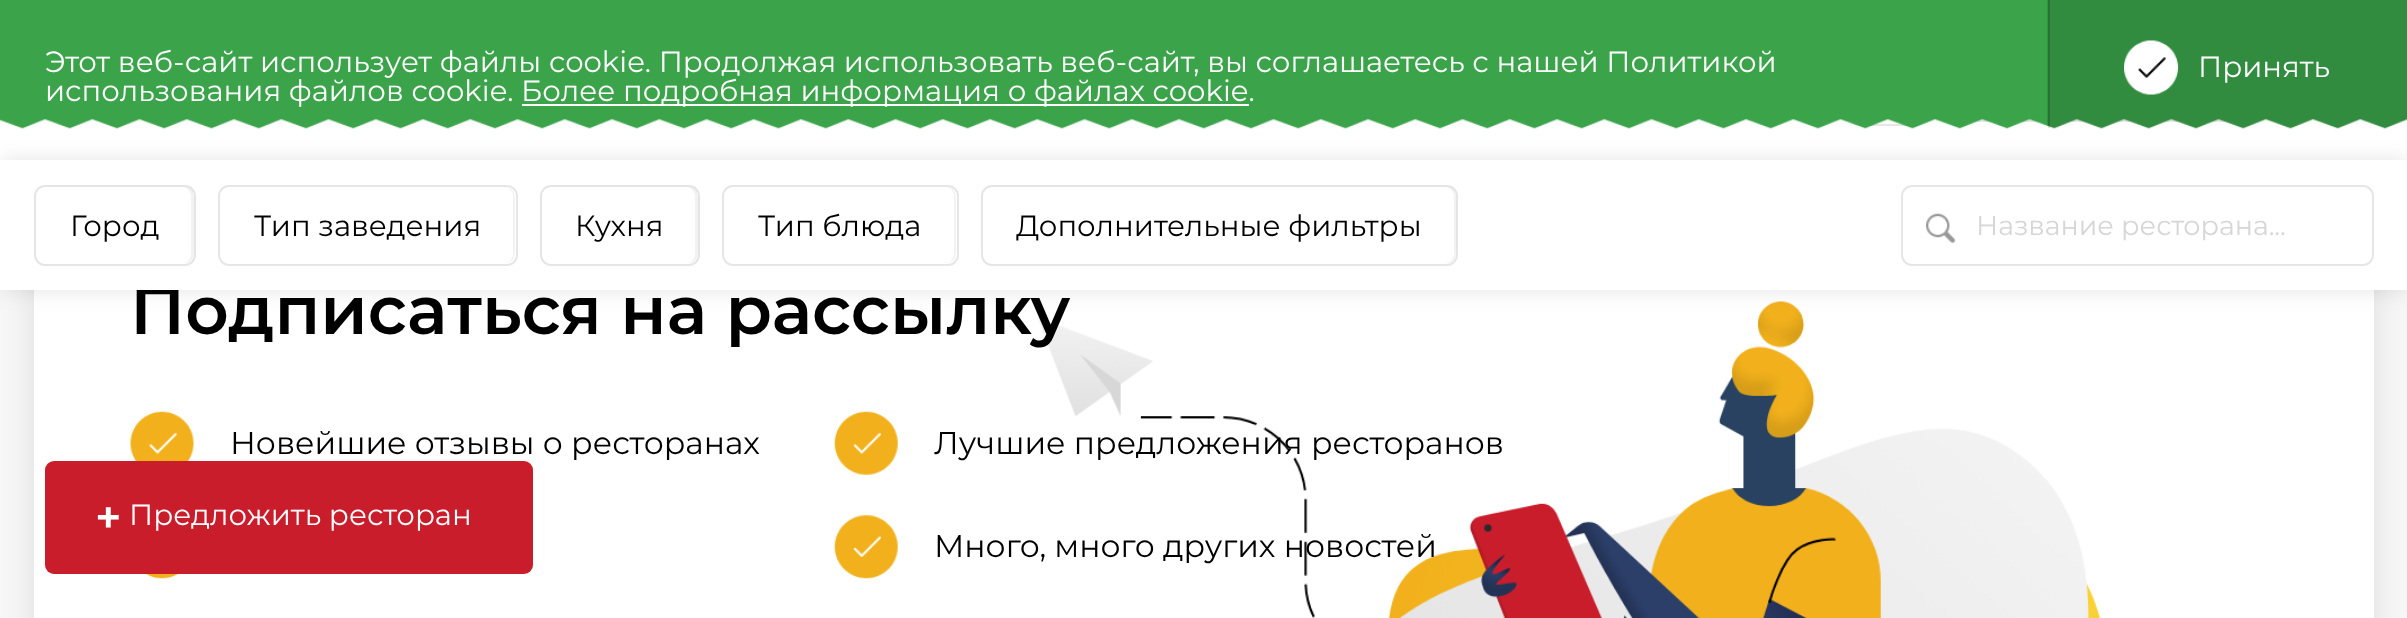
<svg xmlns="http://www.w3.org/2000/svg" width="2407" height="618">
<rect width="100%" height="100%" fill="#f7f7f7"/>
<rect y="119" width="2407" height="41" fill="#fff"/>
<path d="M1861 38h51v88h-51c-6 0-11-5-11-11v-65c0-7 5-12 11-12zm0 2h51v84h-51c-5 0-9-4-9-9v-65c0-5 4-10 9-10z" fill="#e6e6e6" fill-rule="evenodd"/>
<path d="M1942 38h294c7 0 12 5 12 12v60c0 6-5 12-12 12h-294zm0 2h294c5 0 10 5 10 10v60c0 5-5 9-10 9h-294z" fill="#e6e6e6" fill-rule="evenodd"/>
<rect x="34" y="216" width="2340" height="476" rx="23" fill="#0000001a" filter="blur(17px)"/>
<rect x="34" y="290" width="2340" height="328" fill="#fff"/>
<image x="1037" y="301" width="1064" height="317" href="media/4.png"/>
<rect y="160" width="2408" height="130" fill="#0000001a" filter="blur(11px)"/>
<image x="0" y="0" width="2407" height="129" href="media/1.png"/>
<text x="45" y="72" style="font-family:Montserrat;font-size:29.25px;fill:#fff">Этот веб-сайт использует файлы cookie. Продолжая использовать веб-сайт, вы соглашаетесь с нашей Политикой</text>
<text x="45" y="101" style="font-family:Montserrat;font-size:29.25px;fill:#fff">использования файлов cookie.</text>
<rect x="522" y="104" width="727" height="2" fill="#fff"/>
<text x="521" y="101" style="font-family:Montserrat;font-size:29.25px;fill:#fff">Более подробная информация о файлах cookie.</text>
<rect x="2048" width="2" height="128" fill="#0000001a"/>
<image x="2124" y="40" width="55" height="55" href="media/2.png"/>
<text x="2198" y="77" style="font-family:Montserrat;font-size:29.25px;fill:#fff">Принять</text>
<text x="130" y="334" style="font-family:Montserrat;font-size:67.5px;font-weight:600;fill:#000">Подписаться на рассылку</text>
<rect y="160" width="2407" height="130" fill="#fff"/>
<path d="M182 263c13 0 12-7 12-19v-38c0-12 1-19-12-19c5 0 9 4 9 9v58c0 5-4 9-9 9z" fill="#f2f2f2"/>
<rect x="35" y="186" width="160" height="79" rx="10" fill="none" stroke="#0000001a" stroke-width="2"/>
<text x="70" y="236" style="font-family:Montserrat;font-size:29.25px;fill:#000">Город</text>
<path d="M504 263c12 0 11-9 11-19v-38c0-10 1-19-11-19c5 0 9 4 9 9v58c0 5-4 9-9 9z" fill="#f2f2f2"/>
<rect x="219" y="186" width="298" height="79" rx="10" fill="none" stroke="#e6e6e6" stroke-width="2"/>
<text x="254" y="236" style="font-family:Montserrat;font-size:29.25px;fill:#000">Тип заведения</text>
<path d="M686 263c13 0 12-7 12-19v-38c0-12 1-19-12-19c5 0 9 4 9 9v58c0 5-4 9-9 9z" fill="#f2f2f2"/>
<rect x="541" y="186" width="158" height="79" rx="10" fill="none" stroke="#0000001a" stroke-width="2"/>
<text x="575" y="236" style="font-family:Montserrat;font-size:29.25px;fill:#000">Кухня</text>
<path d="M945 263c12 0 11-9 11-19v-38c0-10 1-19-11-19c5 0 9 4 9 9v58c0 5-4 9-9 9z" fill="#f2f2f2"/>
<rect x="723" y="186" width="235" height="79" rx="10" fill="none" stroke="#e6e6e6" stroke-width="2"/>
<text x="758" y="236" style="font-family:Montserrat;font-size:29.25px;fill:#000">Тип блюда</text>
<path d="M1444 263c13 0 12-7 12-19v-38c0-12 1-19-12-19c5 0 10 4 10 9v58c0 5-5 9-10 9z" fill="#f2f2f2"/>
<rect x="982" y="186" width="475" height="79" rx="10" fill="none" stroke="#0000001a" stroke-width="2"/>
<text x="1016" y="236" style="font-family:Montserrat;font-size:29.25px;fill:#000">Дополнительные фильтры</text>
<rect x="1902" y="186" width="471" height="79" rx="10" fill="none" stroke="#e6e6e6" stroke-width="2"/>
<image x="1926" y="213" width="30" height="30" href="media/3.png"/>
<text x="1976" y="235" style="font-family:Montserrat;font-size:27px;fill:#d6d6d6">Название ресторана...</text>
<image x="130" y="411" width="64" height="50" href="media/5.png"/>
<text x="230" y="454" style="font-family:Montserrat;font-size:31.5px;fill:#000">Новейшие отзывы о ресторанах</text>
<image x="834" y="411" width="64" height="64" href="media/6.png"/>
<text x="934" y="454" style="font-family:Montserrat;font-size:31.5px;fill:#000">Лучшие предложения ресторанов</text>
<image x="834" y="515" width="64" height="64" href="media/7.png"/>
<text x="934" y="557" style="font-family:Montserrat;font-size:31.5px;fill:#000">Много, много других новостей</text>
<image x="146" y="574" width="32" height="5" href="media/8.png"/>
<rect x="45" y="461" width="488" height="113" rx="9" fill="#c91d2c"/>
<text x="95" y="533" style="font-family:Montserrat;font-size:45px;font-weight:600;fill:#fff">+</text>
<text x="129" y="525" style="font-family:Montserrat;font-size:29.25px;fill:#fff">Предложить ресторан</text>
</svg>
